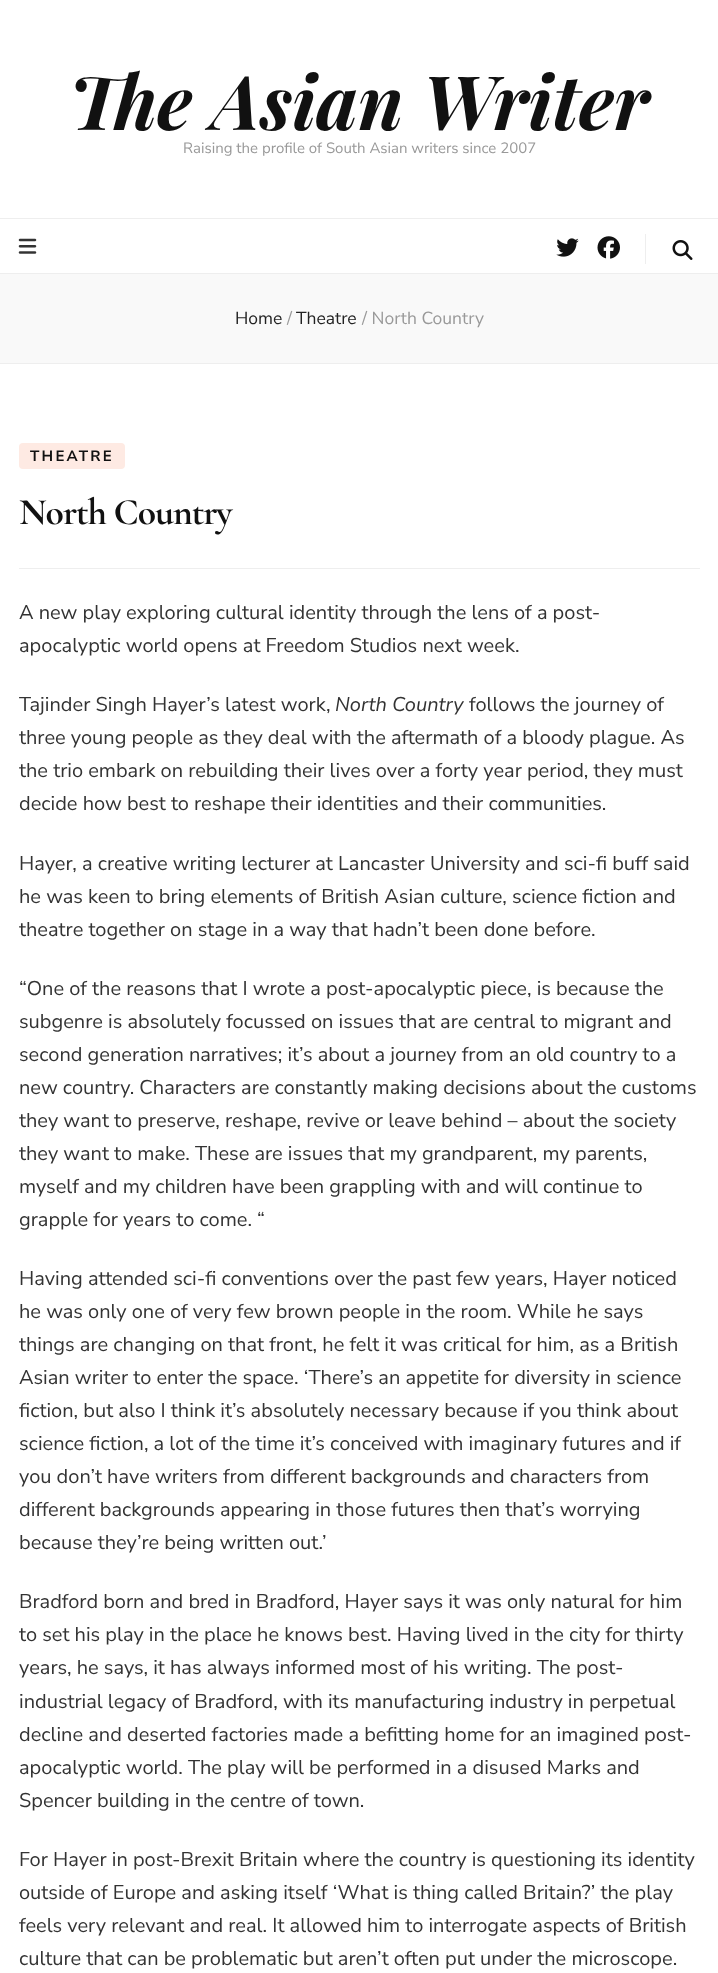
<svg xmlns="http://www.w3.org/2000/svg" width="718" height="1973">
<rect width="100%" height="100%" fill="#fff"/>
<text x="69" y="130" style="font-family:Playfair Display;font-size:75px;font-weight:bold;font-style:italic;fill:#111">The Asian Writer</text>
<text x="183" y="153" style="font-family:Nunito Sans;font-size:15px;fill:#999">Raising the profile of South Asian writers since 2007</text>
<rect y="218" width="718" height="1" fill="#eee"/>
<rect y="273" width="718" height="1" fill="#eee"/>
<image x="18" y="238" width="19" height="16" href="media/1.png"/>
<image x="556" y="238" width="23" height="19" href="media/2.png"/>
<image x="597" y="236" width="23" height="23" href="media/3.png"/>
<rect x="645" y="234" width="1" height="30" fill="#eee"/>
<image x="672" y="240" width="21" height="20" href="media/4.png"/>
<rect y="274" width="718" height="89" fill="#f9f9f9"/>
<rect y="363" width="718" height="1" fill="#eee"/>
<text x="235" y="324" style="font-family:Nunito Sans;font-size:17.5px;fill:#222">Home</text>
<text x="287" y="324" style="font-family:Nunito Sans;font-size:17.5px;fill:#999">/</text>
<text x="296" y="324" style="font-family:Nunito Sans;font-size:17.5px;fill:#222">Theatre</text>
<text x="362" y="324" style="font-family:Nunito Sans;font-size:17.5px;fill:#999">/ North Country</text>
<rect x="19" y="568" width="681" height="1" fill="#eee"/>
<rect x="19" y="443" width="106" height="26" rx="4" fill="#feeae3"/>
<text x="30" y="461" style="font-family:Nunito Sans;font-size:15px;font-weight:bold;letter-spacing:2.25px;fill:#111">THEATRE</text>
<text x="19" y="524" style="font-family:Cormorant;font-size:37.5px;font-weight:bold;letter-spacing:-1px;fill:#111">North Country</text>
<text x="19" y="619" style="font-family:Nunito Sans;font-size:20px;fill:#333">A new play exploring cultural identity through the lens of a post-</text>
<text x="19" y="652" style="font-family:Nunito Sans;font-size:20px;fill:#333">apocalyptic world opens at Freedom Studios next week.</text>
<text x="19" y="711" style="font-family:Nunito Sans;font-size:20px;fill:#333">Tajinder Singh Hayer’s latest work,</text>
<text x="335" y="711" style="font-family:Nunito Sans;font-size:20px;font-style:italic;fill:#333">North Country</text>
<text x="469" y="711" style="font-family:Nunito Sans;font-size:20px;fill:#333">follows the journey of</text>
<text x="19" y="744" style="font-family:Nunito Sans;font-size:20px;fill:#333">three young people as they deal with the aftermath of a bloody plague. As</text>
<text x="19" y="777" style="font-family:Nunito Sans;font-size:20px;fill:#333">the trio embark on rebuilding their lives over a forty year period, they must</text>
<text x="19" y="810" style="font-family:Nunito Sans;font-size:20px;fill:#333">decide how best to reshape their identities and their communities.</text>
<text x="19" y="870" style="font-family:Nunito Sans;font-size:20px;fill:#333">Hayer, a creative writing lecturer at Lancaster University and sci-fi buff said</text>
<text x="19" y="903" style="font-family:Nunito Sans;font-size:20px;fill:#333">he was keen to bring elements of British Asian culture, science fiction and</text>
<text x="19" y="936" style="font-family:Nunito Sans;font-size:20px;fill:#333">theatre together on stage in a way that hadn’t been done before.</text>
<text x="19" y="995" style="font-family:Nunito Sans;font-size:20px;fill:#333">“One of the reasons that I wrote a post-apocalyptic piece, is because the</text>
<text x="19" y="1028" style="font-family:Nunito Sans;font-size:20px;fill:#333">subgenre is absolutely focussed on issues that are central to migrant and</text>
<text x="19" y="1061" style="font-family:Nunito Sans;font-size:20px;fill:#333">second generation narratives; it’s about a journey from an old country to a</text>
<text x="19" y="1094" style="font-family:Nunito Sans;font-size:20px;fill:#333">new country. Characters are constantly making decisions about the customs</text>
<text x="19" y="1127" style="font-family:Nunito Sans;font-size:20px;fill:#333">they want to preserve, reshape, revive or leave behind – about the society</text>
<text x="19" y="1160" style="font-family:Nunito Sans;font-size:20px;fill:#333">they want to make. These are issues that my grandparent, my parents,</text>
<text x="19" y="1193" style="font-family:Nunito Sans;font-size:20px;fill:#333">myself and my children have been grappling with and will continue to</text>
<text x="19" y="1226" style="font-family:Nunito Sans;font-size:20px;fill:#333">grapple for years to come. “</text>
<text x="19" y="1285" style="font-family:Nunito Sans;font-size:20px;fill:#333">Having attended sci-fi conventions over the past few years, Hayer noticed</text>
<text x="19" y="1318" style="font-family:Nunito Sans;font-size:20px;fill:#333">he was only one of very few brown people in the room. While he says</text>
<text x="19" y="1351" style="font-family:Nunito Sans;font-size:20px;fill:#333">things are changing on that front, he felt it was critical for him, as a British</text>
<text x="19" y="1384" style="font-family:Nunito Sans;font-size:20px;fill:#333">Asian writer to enter the space. ‘There’s an appetite for diversity in science</text>
<text x="19" y="1417" style="font-family:Nunito Sans;font-size:20px;fill:#333">fiction, but also I think it’s absolutely necessary because if you think about</text>
<text x="19" y="1450" style="font-family:Nunito Sans;font-size:20px;fill:#333">science fiction, a lot of the time it’s conceived with imaginary futures and if</text>
<text x="19" y="1483" style="font-family:Nunito Sans;font-size:20px;fill:#333">you don’t have writers from different backgrounds and characters from</text>
<text x="19" y="1516" style="font-family:Nunito Sans;font-size:20px;fill:#333">different backgrounds appearing in those futures then that’s worrying</text>
<text x="19" y="1549" style="font-family:Nunito Sans;font-size:20px;fill:#333">because they’re being written out.’</text>
<text x="19" y="1608" style="font-family:Nunito Sans;font-size:20px;fill:#333">Bradford born and bred in Bradford, Hayer says it was only natural for him</text>
<text x="19" y="1641" style="font-family:Nunito Sans;font-size:20px;fill:#333">to set his play in the place he knows best. Having lived in the city for thirty</text>
<text x="19" y="1674" style="font-family:Nunito Sans;font-size:20px;fill:#333">years, he says, it has always informed most of his writing. The post-</text>
<text x="19" y="1708" style="font-family:Nunito Sans;font-size:20px;fill:#333">industrial legacy of Bradford, with its manufacturing industry in perpetual</text>
<text x="19" y="1741" style="font-family:Nunito Sans;font-size:20px;fill:#333">decline and deserted factories made a befitting home for an imagined post-</text>
<text x="19" y="1774" style="font-family:Nunito Sans;font-size:20px;fill:#333">apocalyptic world. The play will be performed in a disused Marks and</text>
<text x="19" y="1807" style="font-family:Nunito Sans;font-size:20px;fill:#333">Spencer building in the centre of town.</text>
<text x="19" y="1866" style="font-family:Nunito Sans;font-size:20px;fill:#333">For Hayer in post-Brexit Britain where the country is questioning its identity</text>
<text x="19" y="1899" style="font-family:Nunito Sans;font-size:20px;fill:#333">outside of Europe and asking itself ‘What is thing called Britain?’ the play</text>
<text x="19" y="1932" style="font-family:Nunito Sans;font-size:20px;fill:#333">feels very relevant and real. It allowed him to interrogate aspects of British</text>
<text x="19" y="1965" style="font-family:Nunito Sans;font-size:20px;fill:#333">culture that can be problematic but aren’t often put under the microscope.</text>
</svg>
